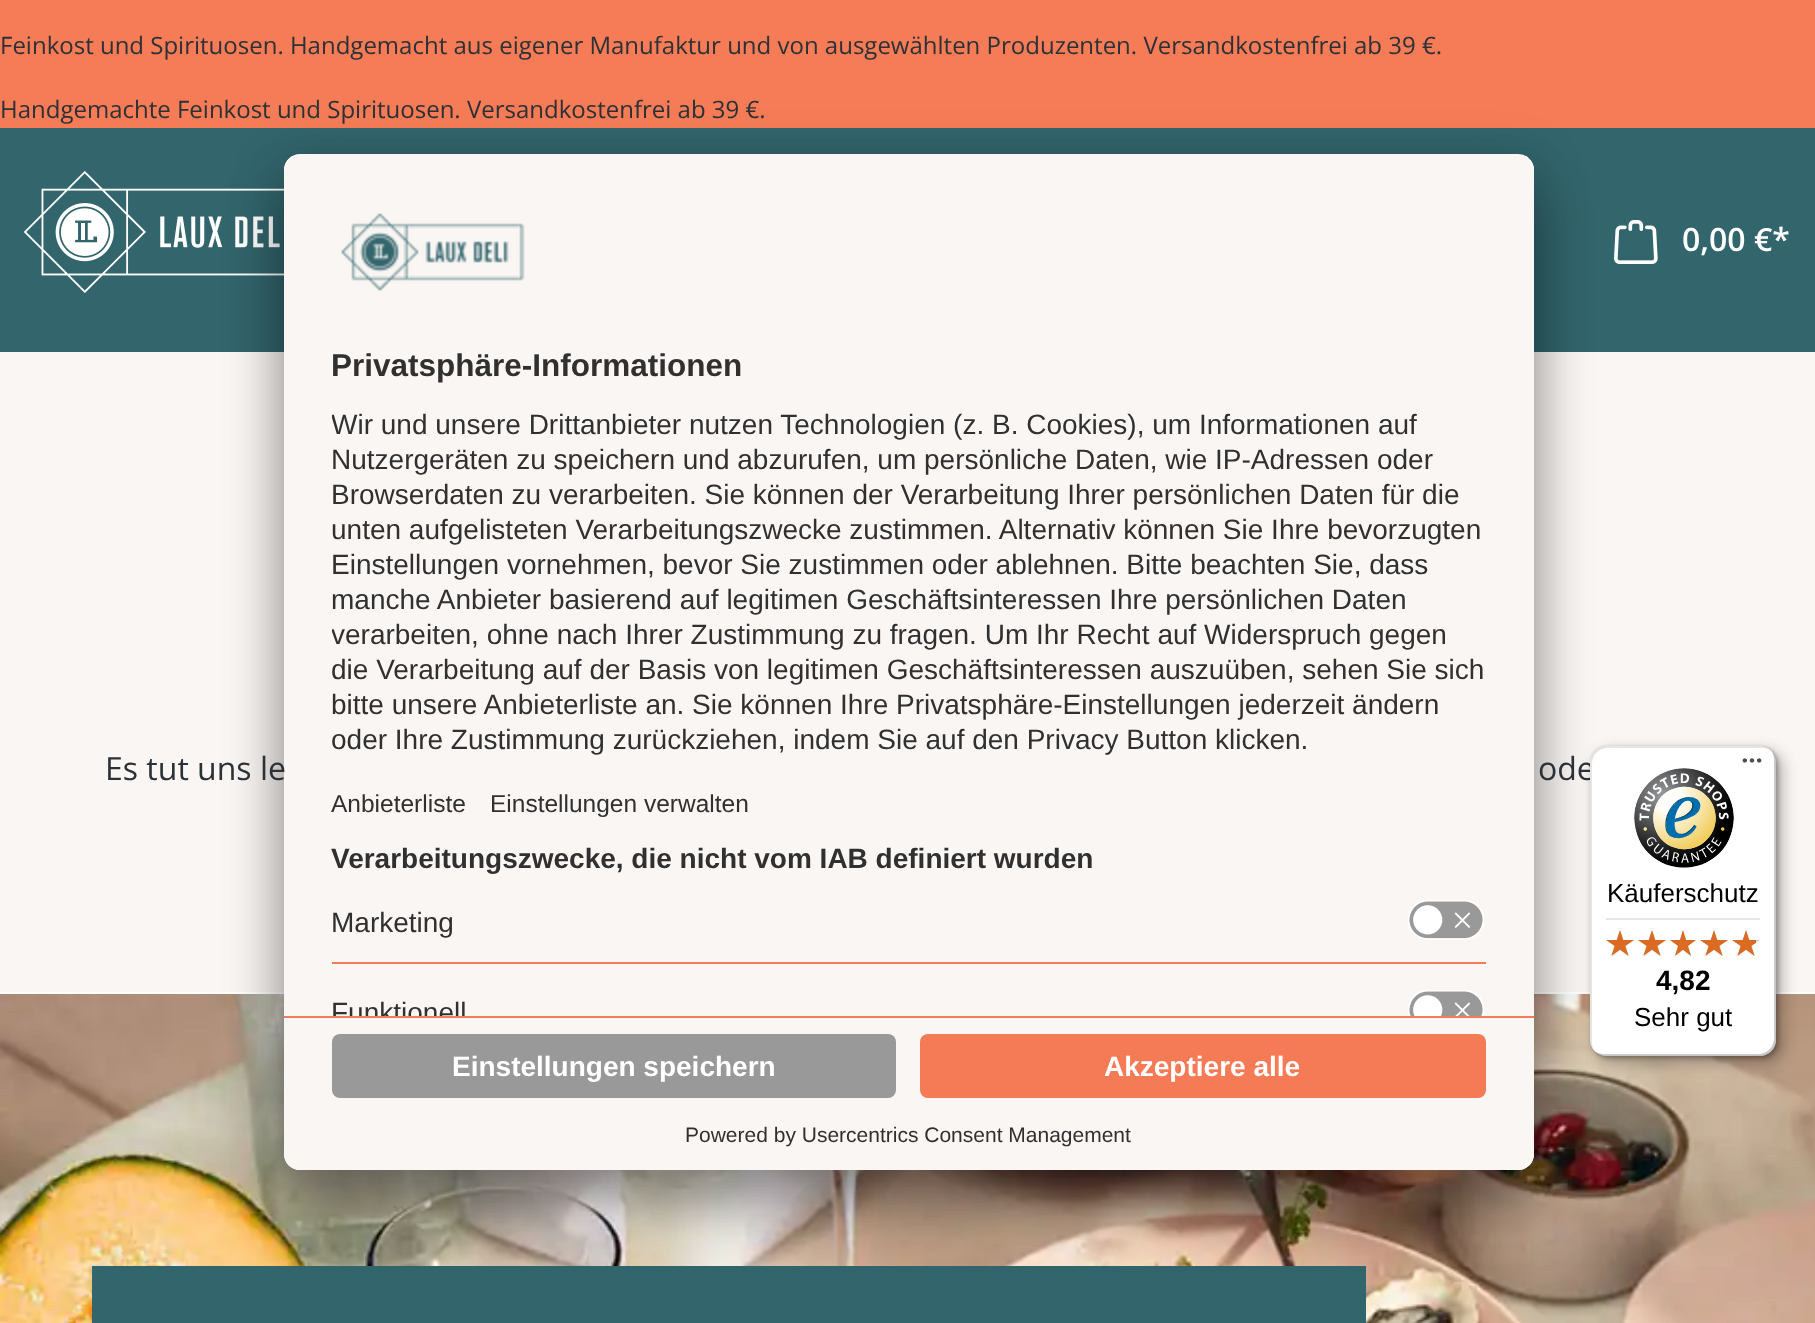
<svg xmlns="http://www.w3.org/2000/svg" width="1815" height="1323">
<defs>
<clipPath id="clip1"><rect x="284" y="154" width="1250" height="1016" rx="16"/></clipPath>
<clipPath id="clip2"><path d="M300 154h1218c9 0 16 7 16 16v846h-1250v-846c0-9 7-16 16-16z"/></clipPath>
<clipPath id="clip3"><rect x="332" y="400" width="1154" height="366"/></clipPath>
</defs>
<rect width="100%" height="100%" fill="#32656c"/>
<rect width="1815" height="128" fill="#f57c56"/>
<text x="0" y="54" style="font-family:Open Sans;font-size:24px;fill:#2b3136">Feinkost und Spirituosen. Handgemacht aus eigener Manufaktur und von ausgewählten Produzenten. Versandkostenfrei ab 39 €.</text>
<text x="0" y="118" style="font-family:Open Sans;font-size:24px;fill:#2b3136">Handgemachte Feinkost und Spirituosen. Versandkostenfrei ab 39 €.</text>
<image x="23" y="171" width="261" height="122" href="media/1.png"/>
<image x="1614" y="220" width="44" height="44" href="media/2.png"/>
<text x="1682" y="251" style="font-family:Open Sans;font-size:32px;font-weight:600;fill:#fff">0,00 €*</text>
<rect y="352" width="1815" height="640" fill="#faf6f4"/>
<rect y="992" width="1815" height="2" fill="#fff"/>
<image x="0" y="994" width="1815" height="329" href="media/13.png"/>
<rect x="92" y="1266" width="1274" height="57" fill="#32656c"/>
<rect x="284" y="194" width="1250" height="1016" rx="16" fill="#0000004d" filter="blur(28px)"/>
<rect x="284" y="164" width="1250" height="1016" rx="16" fill="#00000038" filter="blur(26px)"/>
<rect x="284" y="154" width="1250" height="1016" rx="16" fill="#faf6f4"/>
<g clip-path="url(#clip1)">
<g clip-path="url(#clip2)">
<rect x="284" y="156" width="1250" height="860" fill="#faf6f4"/>
<rect x="284" y="156" width="1250" height="662" fill="#faf6f4"/>
</g>
</g>
<image x="341" y="213" width="184" height="78" href="media/3.png"/>
<text x="331" y="376" style="font-family:Liberation Sans;font-size:31.5px;font-weight:bold;fill:#303030">Privatsphäre-Informationen</text>
<g clip-path="url(#clip3)">
<text x="331" y="434" style="font-family:Liberation Sans;font-size:28px;fill:#303030">Wir und unsere Drittanbieter nutzen Technologien (z. B. Cookies), um Informationen auf</text>
</g>
<text x="331" y="469" style="font-family:Liberation Sans;font-size:28px;fill:#303030">Nutzergeräten zu speichern und abzurufen, um persönliche Daten, wie IP-Adressen oder</text>
<text x="331" y="504" style="font-family:Liberation Sans;font-size:28px;fill:#303030">Browserdaten zu verarbeiten. Sie können der Verarbeitung Ihrer persönlichen Daten für die</text>
<text x="331" y="539" style="font-family:Liberation Sans;font-size:28px;fill:#303030">unten aufgelisteten Verarbeitungszwecke zustimmen. Alternativ können Sie Ihre bevorzugten</text>
<text x="331" y="574" style="font-family:Liberation Sans;font-size:28px;fill:#303030">Einstellungen vornehmen, bevor Sie zustimmen oder ablehnen. Bitte beachten Sie, dass</text>
<text x="331" y="609" style="font-family:Liberation Sans;font-size:28px;fill:#303030">manche Anbieter basierend auf legitimen Geschäftsinteressen Ihre persönlichen Daten</text>
<g clip-path="url(#clip3)">
<text x="331" y="644" style="font-family:Liberation Sans;font-size:28px;fill:#303030">verarbeiten, ohne nach Ihrer Zustimmung zu fragen. Um Ihr Recht auf Widerspruch gegen</text>
</g>
<text x="331" y="679" style="font-family:Liberation Sans;font-size:28px;fill:#303030">die Verarbeitung auf der Basis von legitimen Geschäftsinteressen auszuüben, sehen Sie sich</text>
<text x="331" y="714" style="font-family:Liberation Sans;font-size:28px;fill:#303030">bitte unsere Anbieterliste an. Sie können Ihre Privatsphäre-Einstellungen jederzeit ändern</text>
<text x="331" y="749" style="font-family:Liberation Sans;font-size:28px;fill:#303030">oder Ihre Zustimmung zurückziehen, indem Sie auf den Privacy Button klicken.</text>
<text x="331" y="812" style="font-family:Liberation Sans;font-size:24.5px;fill:#303030">Anbieterliste</text>
<text x="490" y="812" style="font-family:Liberation Sans;font-size:24.5px;fill:#303030">Einstellungen verwalten</text>
<text x="331" y="868" style="font-family:Liberation Sans;font-size:28px;font-weight:bold;fill:#303030">Verarbeitungszwecke, die nicht vom IAB definiert wurden</text>
<rect x="332" y="962" width="1154" height="2" fill="#f57b56"/>
<text x="331" y="932" style="font-family:Liberation Sans;font-size:28px;fill:#303030">Marketing</text>
<image x="1408" y="900" width="76" height="40" href="media/4.png"/>
<g clip-path="url(#clip2)">
<text x="331" y="1022" style="font-family:Liberation Sans;font-size:28px;fill:#303030">Funktionell</text>
</g>
<image x="1408" y="990" width="76" height="26" href="media/5.png"/>
<path d="M284 1016h1250v138c0 9-7 16-16 16h-1218c-9 0-16-7-16-16z" fill="#faf6f4"/>
<rect x="284" y="1016" width="1250" height="2" fill="#f57b56"/>
<rect x="332" y="1034" width="564" height="64" rx="8" fill="#999"/>
<text x="452" y="1076" style="font-family:Liberation Sans;font-size:28px;font-weight:bold;fill:#fff">Einstellungen speichern</text>
<rect x="920" y="1034" width="566" height="64" rx="8" fill="#f57b56"/>
<text x="1104" y="1076" style="font-family:Liberation Sans;font-size:28px;font-weight:bold;fill:#fff">Akzeptiere alle</text>
<text x="685" y="1142" style="font-family:Liberation Sans;font-size:21px;fill:#303030">Powered by Usercentrics Consent Management</text>
<rect x="1596" y="752" width="186" height="310" rx="16" fill="#00000026" filter="blur(8px)"/>
<rect x="1592" y="748" width="186" height="310" rx="16" fill="#00000026" filter="blur(2px)"/>
<path d="M1608 748h154c4 0 7 1 10 3c-3-3-7-5-12-5h-154c-9 0-16 7-16 16v278c0 5 2 9 5 12c-2-3-3-6-3-10v-278c0-9 7-16 16-16z" fill="#0000001a"/>
<path d="M1594 1051c3 3 7 5 12 5h154c9 0 16-7 16-16v-278c0-5-2-9-5-12c2 3 3 6 3 10v278c0 9-7 16-16 16h-154c-4 0-7-1-10-3z" fill="#00000033"/>
<text x="105" y="780" style="font-family:Open Sans;font-size:32px;fill:#2b3136">Es tut uns le</text>
<text x="1538" y="780" style="font-family:Open Sans;font-size:32px;fill:#2b3136">ode</text>
<rect x="1596" y="752" width="186" height="310" rx="16" fill="#00000026" filter="blur(8px)"/>
<rect x="1592" y="748" width="186" height="310" rx="16" fill="#00000026" filter="blur(2px)"/>
<rect x="1590" y="746" width="186" height="310" rx="16" fill="#fff"/>
<path d="M1608 748h154c4 0 7 1 10 3c-3-3-7-5-12-5h-154c-9 0-16 7-16 16v278c0 5 2 9 5 12c-2-3-3-6-3-10v-278c0-9 7-16 16-16z" fill="#0000001a"/>
<path d="M1594 1051c3 3 7 5 12 5h154c9 0 16-7 16-16v-278c0-5-2-9-5-12c2 3 3 6 3 10v278c0 9-7 16-16 16h-154c-4 0-7-1-10-3z" fill="#00000033"/>
<path d="M1595 1051c3 3 7 5 11 5h154c9 0 16-7 16-16v-278c0-4-2-8-5-11c3 3 4 6 4 10v278c0 9-7 16-16 16h-154c-4 0-7-1-10-4z" fill="#32323233"/>
<path d="M1595 1051c3 3 7 5 11 5h154c9 0 16-7 16-16v-278c0-4-2-8-5-11c3 3 4 6 4 10v278c0 9-7 16-16 16h-154c-4 0-7-1-10-4z" fill="#ffffff4d"/>
<image x="1742" y="758" width="20" height="5" href="media/6.png"/>
<image x="1634" y="768" width="100" height="100" href="media/7.png"/>
<text x="1607" y="902" style="font-family:Liberation Sans;font-size:26px;fill:#000">Käuferschutz</text>
<rect x="1606" y="918" width="154" height="2" fill="#e5e5e5"/>
<image x="1606" y="930" width="28" height="26" href="media/8.png"/>
<image x="1638" y="930" width="28" height="26" href="media/8.png"/>
<image x="1670" y="930" width="26" height="26" href="media/9.png"/>
<image x="1700" y="930" width="28" height="26" href="media/8.png"/>
<image x="1732" y="930" width="28" height="26" href="media/8.png"/>
<image x="1606" y="930" width="28" height="26" href="media/10.png"/>
<image x="1638" y="930" width="28" height="26" href="media/10.png"/>
<image x="1670" y="930" width="26" height="26" href="media/11.png"/>
<image x="1700" y="930" width="28" height="26" href="media/10.png"/>
<image x="1732" y="930" width="24" height="26" href="media/12.png"/>
<text x="1656" y="990" style="font-family:Liberation Sans;font-size:28px;font-weight:bold;fill:#000">4,82</text>
<text x="1634" y="1026" style="font-family:Liberation Sans;font-size:26px;fill:#000">Sehr gut</text>
</svg>
